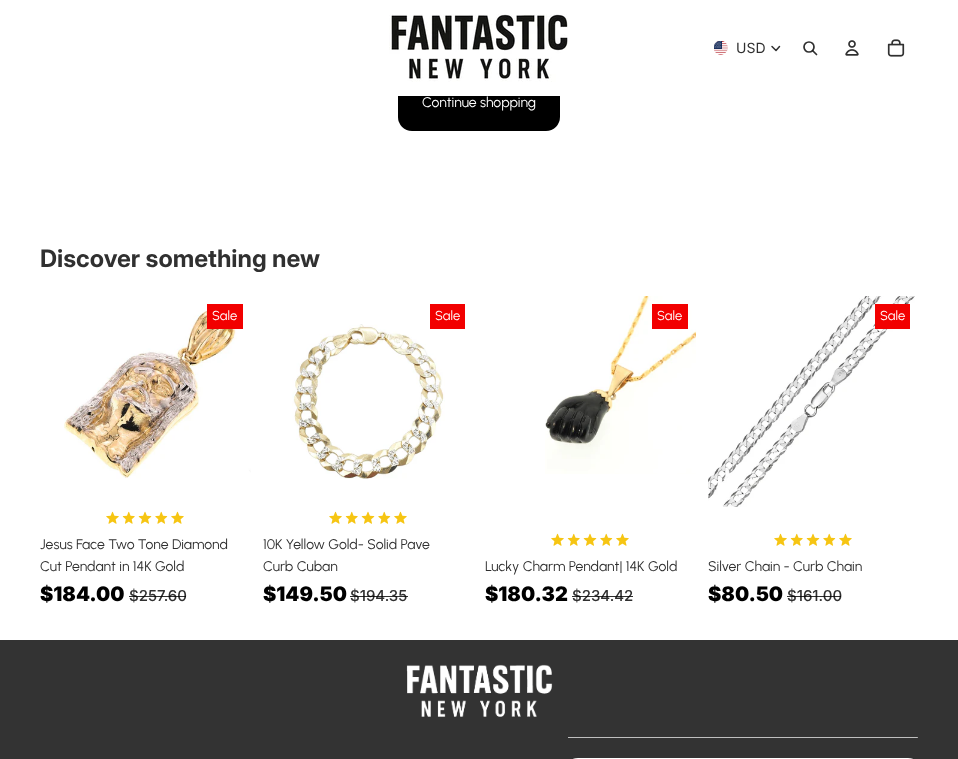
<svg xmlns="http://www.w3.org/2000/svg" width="958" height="759">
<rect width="100%" height="100%" fill="#fff"/>
<rect x="398" y="76" width="162" height="55" rx="14" fill="#000"/>
<rect x="398" y="76" width="162" height="20" fill="#fff"/>
<image x="389" y="14" width="179" height="68" href="media/1.png"/>
<image x="714" y="41" width="14" height="14" href="media/2.png"/>
<text x="736" y="53" style="font-family:Inter;font-size:14px;fill:#303030">USD</text>
<path d="M779.5 46.5l-3.5 4l-4-4" fill="none" stroke="#303030" stroke-width="1.5" stroke-linecap="round" stroke-linejoin="round"/>
<circle cx="809" cy="47" r="5" fill="none" stroke="#303030" stroke-width="1.7"/>
<path d="M813 51l3.5 3.5" fill="none" stroke="#000000cf" stroke-width="1.7" stroke-linecap="round" stroke-linejoin="round"/>
<image x="845" y="40" width="14" height="16" href="media/3.png"/>
<image x="887" y="39" width="18" height="18" href="media/4.png"/>
<text x="422" y="107" style="font-family:Urbanist;font-size:14px;fill:#fff">Continue shopping</text>
<text x="40" y="267" style="font-family:Inter;font-size:24px;font-weight:bold;fill:#303030">Discover something new</text>
<image x="64" y="310" width="187" height="169" href="media/5.png"/>
<rect x="207" y="304" width="36" height="25" fill="#f20000"/>
<text x="212" y="320" style="font-family:Urbanist;font-size:13px;fill:#fff">Sale</text>
<image x="106" y="511" width="78" height="13" href="media/6.png"/>
<text x="40" y="549" style="font-family:Urbanist;font-size:14px;fill:#303030">Jesus Face Two Tone Diamond</text>
<text x="40" y="571" style="font-family:Urbanist;font-size:14px;fill:#303030">Cut Pendant in 14K Gold</text>
<text x="40" y="601" style="font-family:Inter;font-size:20px;font-weight:900;fill:#000">$184.00</text>
<text x="129" y="601" style="font-family:Inter;font-size:15px;font-weight:500;fill:#303030">$257.60</text>
<rect x="129" y="596" width="57" height="1" fill="#000000cf"/>
<image x="292" y="324" width="153" height="155" href="media/7.png"/>
<rect x="430" y="304" width="35" height="25" fill="#f20000"/>
<text x="435" y="320" style="font-family:Urbanist;font-size:13px;fill:#fff">Sale</text>
<image x="329" y="511" width="78" height="13" href="media/6.png"/>
<text x="263" y="549" style="font-family:Urbanist;font-size:14px;fill:#303030">10K Yellow Gold- Solid Pave</text>
<text x="263" y="571" style="font-family:Urbanist;font-size:14px;fill:#303030">Curb Cuban</text>
<text x="263" y="601" style="font-family:Inter;font-size:20px;font-weight:900;fill:#000">$149.50</text>
<text x="350" y="601" style="font-family:Inter;font-size:15px;font-weight:500;fill:#303030">$194.35</text>
<rect x="350" y="596" width="58" height="1" fill="#000000cf"/>
<image x="545" y="296" width="151" height="178" href="media/8.png"/>
<rect x="652" y="304" width="36" height="25" fill="#f20000"/>
<text x="657" y="320" style="font-family:Urbanist;font-size:13px;fill:#fff">Sale</text>
<image x="551" y="533" width="78" height="13" href="media/6.png"/>
<text x="485" y="571" style="font-family:Urbanist;font-size:14px;fill:#303030">Lucky Charm Pendant| 14K Gold</text>
<text x="485" y="601" style="font-family:Inter;font-size:20px;font-weight:900;fill:#000">$180.32</text>
<text x="572" y="601" style="font-family:Inter;font-size:15px;font-weight:500;fill:#303030">$234.42</text>
<rect x="572" y="596" width="61" height="1" fill="#000000cf"/>
<image x="708" y="296" width="207" height="211" href="media/9.png"/>
<rect x="875" y="304" width="35" height="25" fill="#f20000"/>
<text x="880" y="320" style="font-family:Urbanist;font-size:13px;fill:#fff">Sale</text>
<image x="774" y="533" width="78" height="13" href="media/6.png"/>
<text x="708" y="571" style="font-family:Urbanist;font-size:14px;fill:#303030">Silver Chain - Curb Chain</text>
<text x="708" y="601" style="font-family:Inter;font-size:20px;font-weight:900;fill:#000">$80.50</text>
<text x="787" y="601" style="font-family:Inter;font-size:15px;font-weight:500;fill:#303030">$161.00</text>
<rect x="787" y="596" width="54" height="1" fill="#000000cf"/>
<rect y="640" width="958" height="119" fill="#333"/>
<image x="406" y="664" width="147" height="53" href="media/10.png"/>
<path d="M918 737v1l-1-1z" fill="#c0c0c0"/>
<path d="M918 738h-350v-1h349z" fill="#ffffffb0"/>
<rect x="568.5" y="758.5" width="349" height="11" rx="9.5" fill="none" stroke="#fff"/>
</svg>
